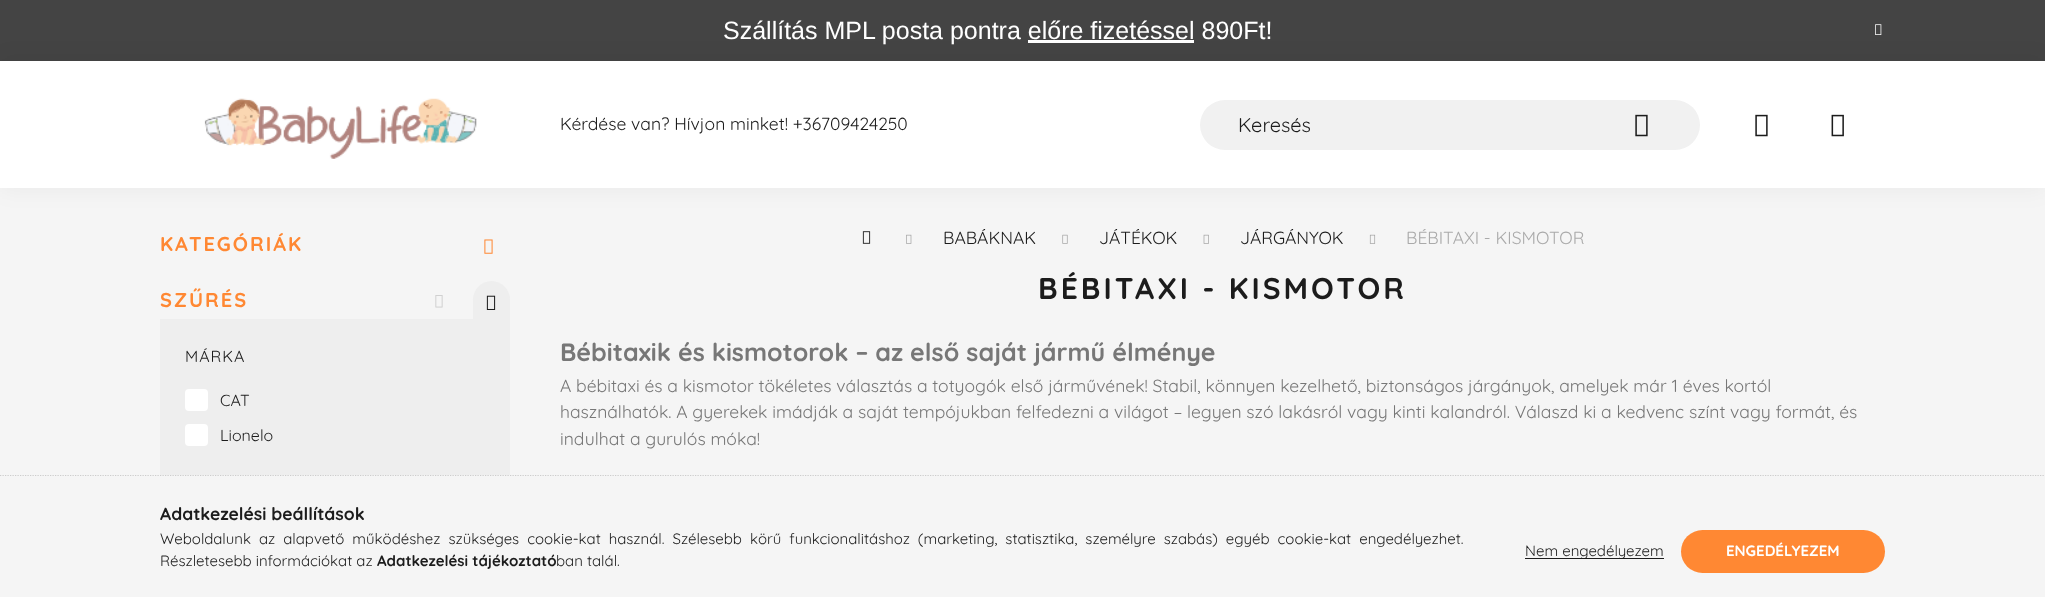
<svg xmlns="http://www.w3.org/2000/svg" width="2045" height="597">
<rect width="100%" height="100%" fill="#f5f5f5"/>
<rect width="2045" height="61" fill="#444"/>
<text x="723" y="39" style="font-family:Liberation Sans;font-size:25px;fill:#fff">Szállítás MPL posta pontra előre fizetéssel 890Ft!</text>
<rect x="1028" y="40" width="166" height="3" fill="#fff"/>
<image x="1875" y="24" width="7" height="11" href="media/1.png"/>
<rect y="61" width="2045" height="127" fill="#0000000d" filter="blur(12.5px)"/>
<rect y="61" width="2045" height="127" fill="#fff"/>
<image x="204" y="98" width="273" height="61" href="media/2.png"/>
<text x="560" y="130" style="font-family:Quicksand;font-size:17.5px;fill:#1c1c1c">Kérdése van? Hívjon minket! +36709424250</text>
<rect x="1200" y="100" width="500" height="50" rx="25" fill="#f1f1f1"/>
<text x="1238" y="132" style="font-family:Quicksand;font-size:20px;fill:#1c1c1c">Keresés</text>
<image x="1635" y="114" width="13" height="23" href="media/3.png"/>
<image x="1755" y="114" width="13" height="23" href="media/4.png"/>
<image x="1831" y="114" width="13" height="23" href="media/5.png"/>
<text x="160" y="251" style="font-family:Quicksand;font-size:20px;font-weight:bold;letter-spacing:2px;fill:#f83">KATEGÓRIÁK</text>
<image x="484" y="239" width="9" height="15" href="media/6.png"/>
<text x="160" y="307" style="font-family:Quicksand;font-size:20px;font-weight:bold;letter-spacing:2px;fill:#f83">SZŰRÉS</text>
<image x="435" y="295" width="8" height="13" href="media/7.png"/>
<path d="M491.5 281c10 0 18.5 8.5 18.5 18.5v19.5h-37v-19.5c0-10 8.5-18.5 18.5-18.5z" fill="#eee"/>
<image x="486" y="295" width="10" height="15" href="media/8.png"/>
<rect x="160" y="319" width="350" height="156" fill="#eee"/>
<text x="185" y="362" style="font-family:Quicksand;font-size:16px;letter-spacing:1px;fill:#1c1c1c">MÁRKA</text>
<rect x="185" y="389" width="23" height="22" rx="4" fill="#fff"/>
<text x="220" y="406" style="font-family:Quicksand;font-size:16px;fill:#1c1c1c">CAT</text>
<rect x="185" y="424" width="23" height="22" rx="4" fill="#fff"/>
<text x="220" y="441" style="font-family:Quicksand;font-size:16px;fill:#1c1c1c">Lionelo</text>
<image x="862" y="231" width="9" height="13" href="media/9.png"/>
<image x="906" y="234" width="6" height="10" href="media/10.png"/>
<text x="943" y="244" style="font-family:Quicksand;font-size:17.5px;fill:#1c1c1c">BABÁKNAK</text>
<image x="1062" y="234" width="6" height="10" href="media/11.png"/>
<text x="1099" y="244" style="font-family:Quicksand;font-size:17.5px;fill:#1c1c1c">JÁTÉKOK</text>
<image x="1203" y="234" width="6" height="10" href="media/12.png"/>
<text x="1240" y="244" style="font-family:Quicksand;font-size:17.5px;fill:#1c1c1c">JÁRGÁNYOK</text>
<image x="1369" y="234" width="7" height="10" href="media/13.png"/>
<text x="1406" y="244" style="font-family:Quicksand;font-size:17.5px;fill:#aaa">BÉBITAXI - KISMOTOR</text>
<text x="1038" y="299" style="font-family:Quicksand;font-size:30px;font-weight:bold;letter-spacing:3px;fill:#1c1c1c">BÉBITAXI - KISMOTOR</text>
<text x="560" y="361" style="font-family:Quicksand;font-size:25px;font-weight:bold;fill:#777">Bébitaxik és kismotorok – az első saját jármű élménye</text>
<text x="560" y="392" style="font-family:Quicksand;font-size:17.5px;fill:#777">A bébitaxi és a kismotor tökéletes választás a totyogók első járművének! Stabil, könnyen kezelhető, biztonságos járgányok, amelyek már 1 éves kortól</text>
<text x="560" y="418" style="font-family:Quicksand;font-size:17.5px;fill:#777">használhatók. A gyerekek imádják a saját tempójukban felfedezni a világot – legyen szó lakásról vagy kinti kalandról. Válaszd ki a kedvenc színt vagy formát, és</text>
<text x="560" y="445" style="font-family:Quicksand;font-size:17.5px;fill:#777">indulhat a gurulós móka!</text>
<path d="M0 475.5h2045" fill="none" stroke="#ccc" stroke-width="1.2" stroke-dasharray="1.25 1.25"/>
<text x="160" y="520" style="font-family:Quicksand;font-size:17.5px;font-weight:bold;fill:#1c1c1c">Adatkezelési beállítások</text>
<text x="160" y="544" word-spacing="3.9" style="font-family:Quicksand;font-size:15px;fill:#1c1c1c">Weboldalunk az alapvető működéshez szükséges cookie-kat használ. Szélesebb körű funkcionalitáshoz (marketing, statisztika, személyre szabás) egyéb cookie-kat engedélyezhet.</text>
<text x="160" y="566" style="font-family:Quicksand;font-size:15px;fill:#1c1c1c">Részletesebb információkat az</text>
<text x="377" y="566" style="font-family:Quicksand;font-size:15px;font-weight:bold;fill:#1c1c1c">Adatkezelési tájékoztató</text>
<text x="556" y="566" style="font-family:Quicksand;font-size:15px;fill:#1c1c1c">ban talál.</text>
<rect x="1525" y="558" width="139" height="1" fill="#1c1c1c"/>
<text x="1525" y="556" style="font-family:Quicksand;font-size:15px;fill:#1c1c1c">Nem engedélyezem</text>
<rect x="1681" y="530" width="204" height="43" rx="21.5" fill="#f83"/>
<text x="1726" y="556" style="font-family:Quicksand;font-size:15px;font-weight:bold;fill:#fff">ENGEDÉLYEZEM</text>
</svg>
